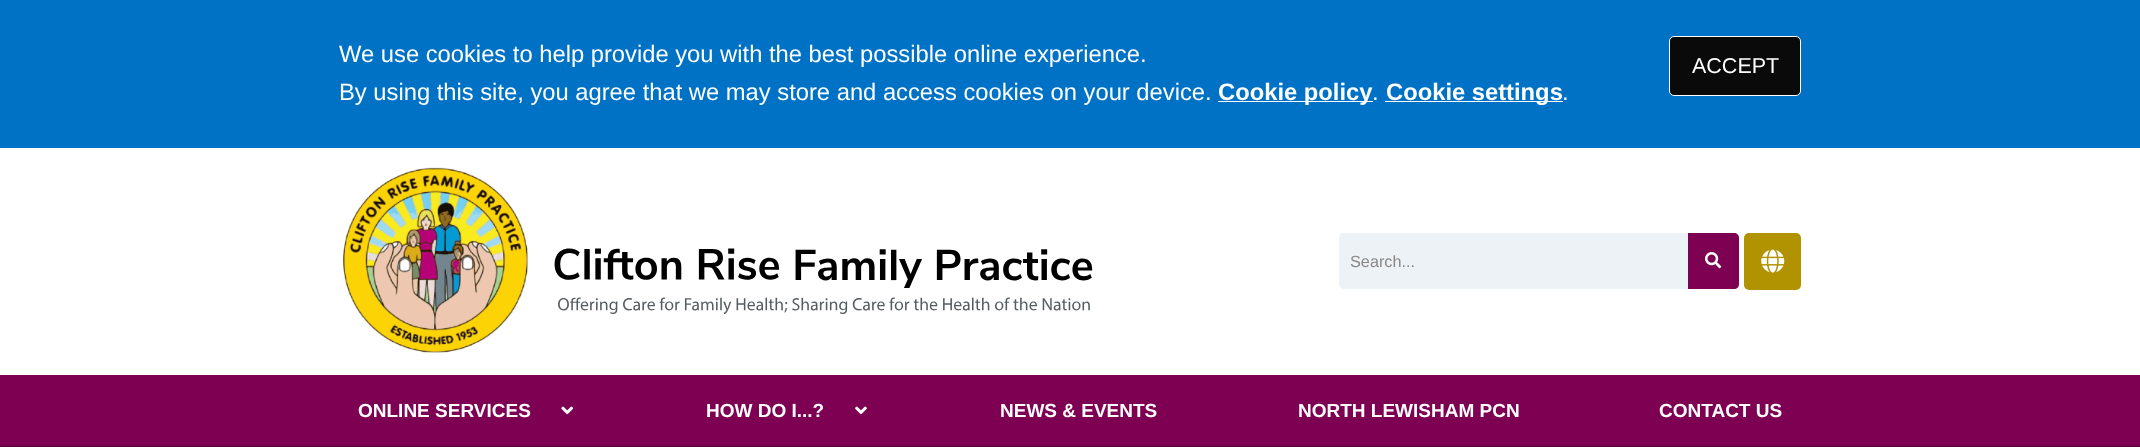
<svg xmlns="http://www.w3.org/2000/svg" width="2140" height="447">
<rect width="100%" height="100%" fill="#4b0031"/>
<rect width="2140" height="148" fill="#0072c6"/>
<text x="339" y="62" style="font-family:Liberation Sans;font-size:23.75px;fill:#fefefe">We use cookies to help provide you with the best possible online experience.</text>
<text x="339" y="100" style="font-family:Liberation Sans;font-size:23.75px;fill:#fefefe">By using this site, you agree that we may store and access cookies on your device.</text>
<rect x="1218" y="101" width="155" height="1" fill="#fefefe"/>
<text x="1218" y="100" style="font-family:Liberation Sans;font-size:23.75px;font-weight:bold;fill:#fefefe">Cookie policy</text>
<text x="1372" y="100" style="font-family:Liberation Sans;font-size:23.75px;fill:#fefefe">.</text>
<rect x="1385" y="101" width="178" height="1" fill="#fefefe"/>
<text x="1386" y="100" style="font-family:Liberation Sans;font-size:23.75px;font-weight:bold;fill:#fefefe">Cookie settings</text>
<text x="1562" y="100" style="font-family:Liberation Sans;font-size:23.75px;fill:#fefefe">.</text>
<rect x="1669.5" y="36.5" width="131" height="59" rx="4.5" fill="#0a0a0a" stroke="#fefefe"/>
<text x="1692" y="73" style="font-family:Liberation Sans;font-size:21.5px;fill:#fefefe">ACCEPT</text>
<rect y="148" width="2140" height="227" fill="#fff"/>
<image x="342" y="167" width="751" height="186" href="media/1.png"/>
<path d="M1344 233h344v56h-344c-3 0-5-2-5-5v-46c0-3 2-5 5-5z" fill="#edf2f7"/>
<text x="1350" y="267" style="font-family:Liberation Sans;font-size:16.25px;fill:#888">Search...</text>
<path d="M1688 233h46c3 0 5 2 5 5v46c0 3-2 5-5 5h-46z" fill="#7e0052"/>
<image x="1705" y="252" width="17" height="17" href="media/2.png"/>
<rect x="1744" y="233" width="57" height="57" rx="5" fill="#b19301"/>
<image x="1761" y="249" width="24" height="24" href="media/3.png"/>
<rect y="375" width="2140" height="71" fill="#7e0052"/>
<text x="358" y="417" style="font-family:Liberation Sans;font-size:19px;font-weight:bold;fill:#fefefe">ONLINE SERVICES</text>
<image x="561" y="406" width="13" height="9" href="media/4.png"/>
<text x="706" y="417" style="font-family:Liberation Sans;font-size:19px;font-weight:bold;fill:#fefefe">HOW DO I...?</text>
<image x="855" y="406" width="12" height="9" href="media/5.png"/>
<text x="1000" y="417" style="font-family:Liberation Sans;font-size:19px;font-weight:bold;fill:#fefefe">NEWS &amp; EVENTS</text>
<text x="1298" y="417" style="font-family:Liberation Sans;font-size:19px;font-weight:bold;fill:#fefefe">NORTH LEWISHAM PCN</text>
<text x="1659" y="417" style="font-family:Liberation Sans;font-size:19px;font-weight:bold;fill:#fefefe">CONTACT US</text>
</svg>
